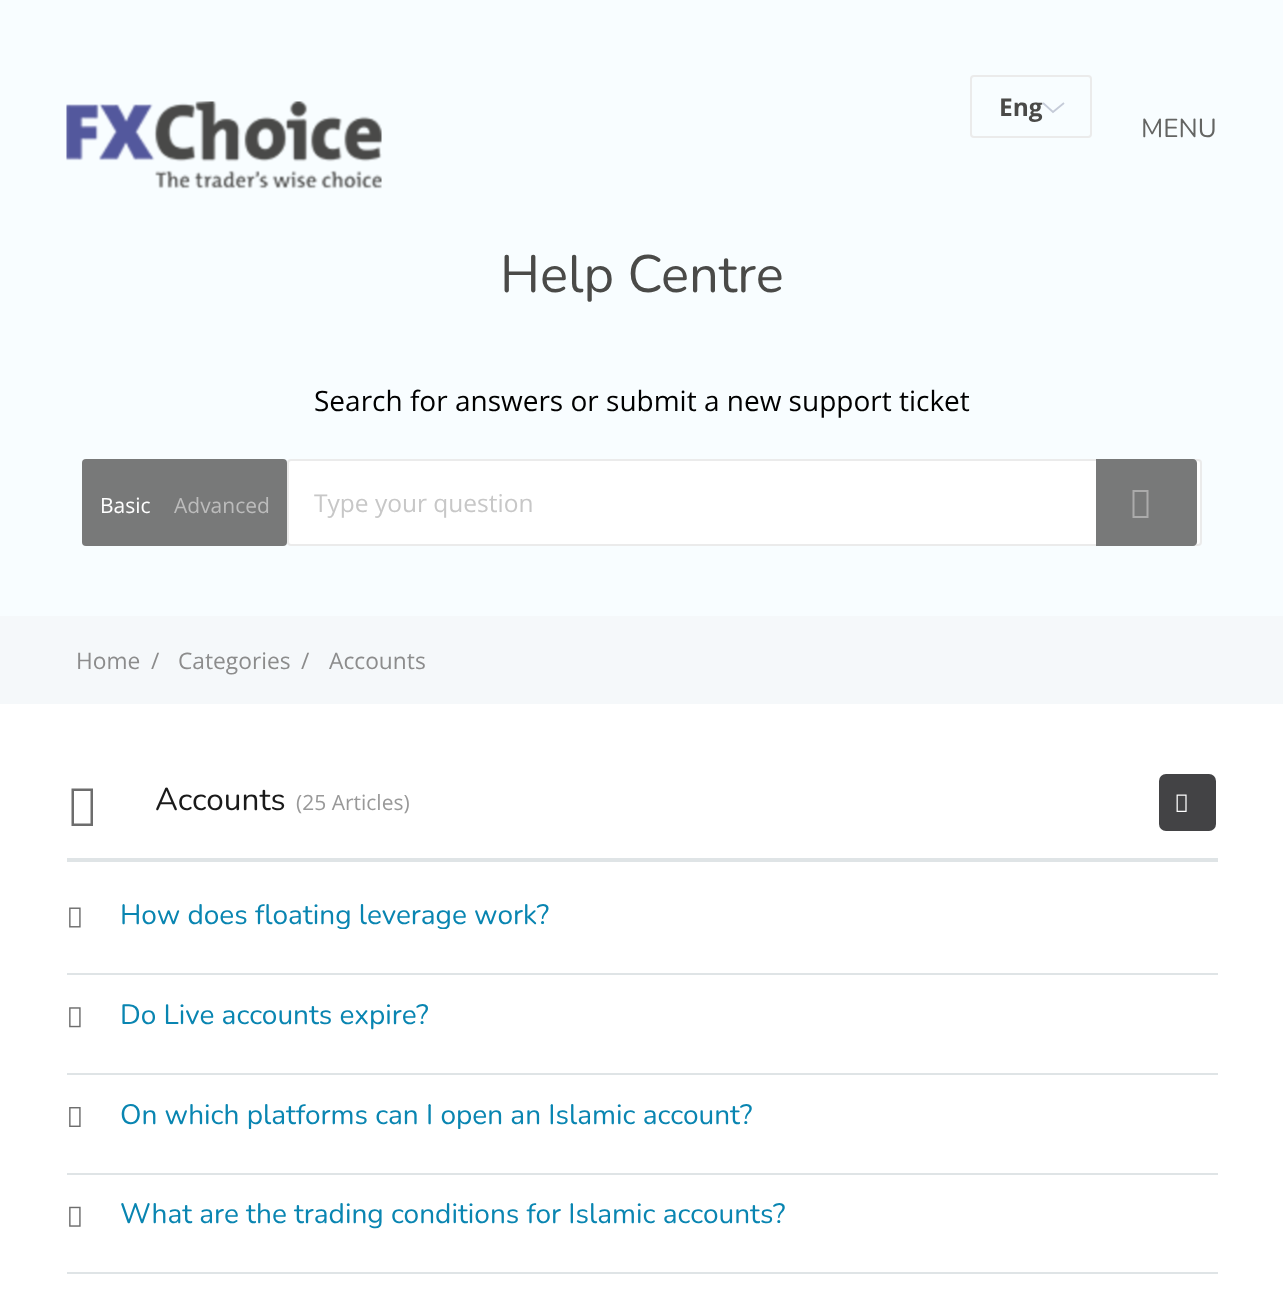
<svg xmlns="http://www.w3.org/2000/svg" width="1283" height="1304">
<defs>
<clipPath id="clip1"><rect x="119" y="901" width="1073" height="28"/></clipPath>
<clipPath id="clip2"><rect x="119" y="1101" width="1073" height="28"/></clipPath>
</defs>
<rect width="100%" height="100%" fill="#fff"/>
<rect width="1283" height="616" fill="#f8fdff"/>
<rect x="971" y="76" width="120" height="61" rx="3" fill="none" stroke="#ebebeb" stroke-width="2"/>
<text x="999" y="116" style="font-family:Open Sans;font-size:24.5px;font-weight:bold;fill:#4a4a48">Eng</text>
<path d="M1043 103l10 9l11-9" fill="none" stroke="#c5cbd8" stroke-width="1.8"/>
<image x="66" y="101" width="316" height="88" href="media/1.png"/>
<text x="1141" y="137" style="font-family:Nunito;font-size:26px;fill:#646563">MENU</text>
<text x="500" y="292" style="font-family:Nunito;font-size:52.5px;fill:#4a4a48">Help Centre</text>
<text x="314" y="411" style="font-family:Open Sans;font-size:28px;fill:#000">Search for answers or submit a new support ticket</text>
<rect x="82" y="459" width="205" height="87" rx="4" fill="#787979"/>
<text x="100" y="513" style="font-family:Open Sans;font-size:21px;fill:#fff">Basic</text>
<text x="174" y="513" style="font-family:Open Sans;font-size:21px;fill:#bcbcbc">Advanced</text>
<rect x="288" y="460" width="913" height="85" rx="3" fill="#fff" stroke="#ebebeb" stroke-width="2"/>
<text x="314" y="512" style="font-family:Open Sans;font-size:24.5px;fill:#c7c7c7">Type your question</text>
<path d="M1096 459h97c2 0 4 2 4 4v79c0 2-2 4-4 4h-97z" fill="#787979"/>
<path d="M1132.5 518v-28h16v28zm2-2h12v-24h-12z" fill="#ababab"/>
<rect y="616" width="1283" height="88" fill="#f5f8fa"/>
<text x="76" y="669" style="font-family:Open Sans;font-size:22.75px;fill:#8c8c8c">Home</text>
<text x="151" y="669" style="font-family:Open Sans;font-size:22.75px;fill:#8c8c8c">/</text>
<text x="178" y="669" style="font-family:Open Sans;font-size:22.75px;fill:#8c8c8c">Categories</text>
<text x="301" y="669" style="font-family:Open Sans;font-size:22.75px;fill:#8c8c8c">/</text>
<text x="329" y="669" style="font-family:Open Sans;font-size:22.75px;fill:#8c8c8c">Accounts</text>
<rect x="67" y="858" width="1151" height="4" fill="#dfe4e6"/>
<path d="M71.5 826v-37.5h21.5v37.5zm2.5-2.5h16.5v-32.5h-16.5z" fill="#6d6d6d"/>
<text x="155" y="810" style="font-family:Nunito;font-size:31.5px;fill:#1a1a1a">Accounts</text>
<text x="296" y="810" style="font-family:Open Sans;font-size:21px;fill:#999">(25 Articles)</text>
<rect x="1159" y="774" width="57" height="57" rx="7" fill="#434345"/>
<image x="1176" y="794" width="11" height="18" href="media/2.png"/>
<rect x="67" y="973" width="1151" height="2" fill="#dfe4e6"/>
<image x="69" y="907" width="12" height="21" href="media/3.png"/>
<g clip-path="url(#clip1)">
<text x="120" y="924" style="font-family:Nunito;font-size:28px;fill:#0985b1">How does floating leverage work?</text>
</g>
<rect x="67" y="1073" width="1151" height="2" fill="#dfe4e6"/>
<image x="69" y="1007" width="12" height="21" href="media/4.png"/>
<text x="120" y="1024" style="font-family:Nunito;font-size:28px;fill:#0985b1">Do Live accounts expire?</text>
<rect x="67" y="1173" width="1151" height="2" fill="#dfe4e6"/>
<image x="69" y="1107" width="12" height="20" href="media/5.png"/>
<g clip-path="url(#clip2)">
<text x="120" y="1124" style="font-family:Nunito;font-size:28px;fill:#0985b1">On which platforms can I open an Islamic account?</text>
</g>
<rect x="67" y="1272" width="1151" height="2" fill="#dfe4e6"/>
<image x="69" y="1206" width="12" height="21" href="media/6.png"/>
<text x="120" y="1223" style="font-family:Nunito;font-size:28px;fill:#0985b1">What are the trading conditions for Islamic accounts?</text>
</svg>
